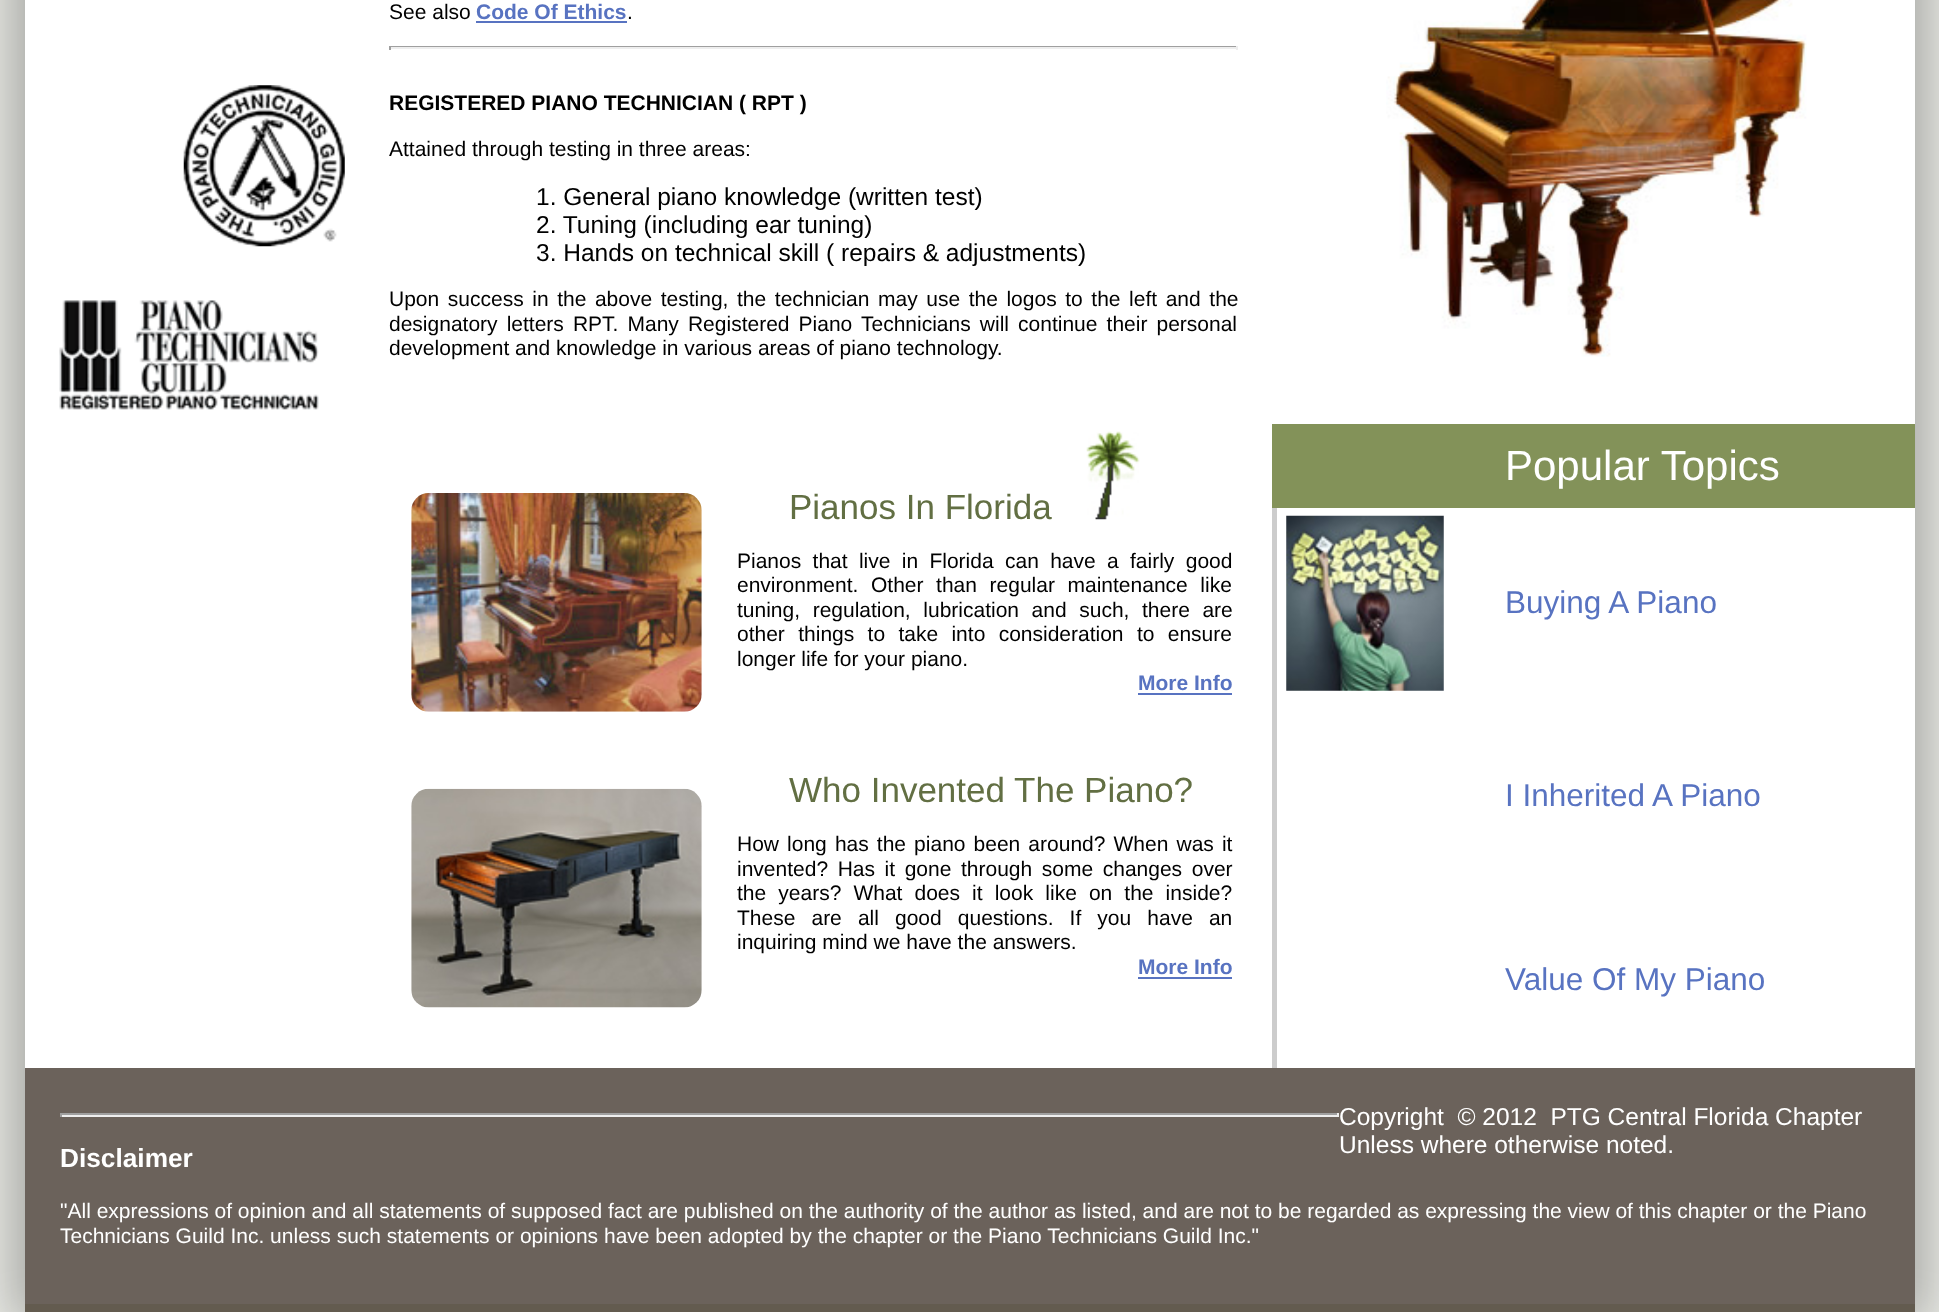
<svg xmlns="http://www.w3.org/2000/svg" width="1939" height="1312">
<rect width="100%" height="100%" fill="#e9eae5"/>
<rect x="14" y="-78" width="1911" height="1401" fill="#0000004d" filter="blur(26px)"/>
<rect x="25" width="1890" height="1068" fill="#fff"/>
<image x="183" y="85" width="162" height="162" href="media/1.png"/>
<image x="59" y="300" width="260" height="110" href="media/2.png"/>
<text x="389" y="19" style="font-family:Liberation Sans;font-size:21px;fill:#000">See also</text>
<text x="476" y="19" style="font-family:Liberation Sans;font-size:21px;font-weight:bold;fill:#5873c1">Code Of Ethics</text>
<rect x="476" y="21" width="151" height="2" fill="#5873c1"/>
<text x="627" y="19" style="font-family:Liberation Sans;font-size:21px;fill:#000">.</text>
<rect x="389" y="46" width="848" height="1" fill="#9f9f9f"/>
<rect x="1236" y="46" width="2" height="4" fill="#eee"/>
<rect x="389" y="47" width="848" height="2" fill="#eee"/>
<rect x="389" y="46" width="2" height="4" fill="#9f9f9f"/>
<text x="389" y="110" style="font-family:Liberation Sans;font-size:21px;font-weight:bold;fill:#000">REGISTERED PIANO TECHNICIAN ( RPT )</text>
<text x="389" y="156" style="font-family:Liberation Sans;font-size:21px;fill:#000">Attained through testing in three areas:</text>
<text x="536" y="205" style="font-family:Liberation Sans;font-size:24.5px;fill:#000">1. General piano knowledge (written test)</text>
<text x="536" y="233" style="font-family:Liberation Sans;font-size:24.5px;fill:#000">2. Tuning (including ear tuning)</text>
<text x="536" y="261" style="font-family:Liberation Sans;font-size:24.5px;fill:#000">3. Hands on technical skill ( repairs &amp; adjustments)</text>
<text x="389" y="306" word-spacing="2.75" style="font-family:Liberation Sans;font-size:21px;fill:#000">Upon success in the above testing, the technician may use the logos to the left and the</text>
<text x="389" y="331" word-spacing="3.25" style="font-family:Liberation Sans;font-size:21px;fill:#000">designatory letters RPT. Many Registered Piano Technicians will continue their personal</text>
<text x="389" y="355" style="font-family:Liberation Sans;font-size:21px;fill:#000">development and knowledge in various areas of piano technology.</text>
<image x="1386" y="0" width="421" height="357" href="media/3.png"/>
<image x="1086" y="431" width="54" height="89" href="media/4.png"/>
<image x="411" y="493" width="291" height="219" href="media/5.png"/>
<text x="789" y="519" style="font-family:Liberation Sans;font-size:35px;fill:#626f43">Pianos In Florida</text>
<text x="737" y="568" word-spacing="5.5" style="font-family:Liberation Sans;font-size:21px;fill:#000">Pianos that live in Florida can have a fairly good</text>
<text x="737" y="592" word-spacing="6.75" style="font-family:Liberation Sans;font-size:21px;fill:#000">environment. Other than regular maintenance like</text>
<text x="737" y="617" word-spacing="6.75" style="font-family:Liberation Sans;font-size:21px;fill:#000">tuning, regulation, lubrication and such, there are</text>
<text x="737" y="641" word-spacing="7.5" style="font-family:Liberation Sans;font-size:21px;fill:#000">other things to take into consideration to ensure</text>
<text x="737" y="666" style="font-family:Liberation Sans;font-size:21px;fill:#000">longer life for your piano.</text>
<text x="1138" y="690" style="font-family:Liberation Sans;font-size:21px;font-weight:bold;fill:#5873c1">More Info</text>
<rect x="1138" y="693" width="94" height="2" fill="#5873c1"/>
<image x="411" y="788" width="291" height="220" href="media/6.png"/>
<text x="789" y="802" style="font-family:Liberation Sans;font-size:35px;fill:#626f43">Who Invented The Piano?</text>
<text x="737" y="851" word-spacing="2.25" style="font-family:Liberation Sans;font-size:21px;fill:#000">How long has the piano been around? When was it</text>
<text x="737" y="876" word-spacing="3.75" style="font-family:Liberation Sans;font-size:21px;fill:#000">invented? Has it gone through some changes over</text>
<text x="737" y="900" word-spacing="6.25" style="font-family:Liberation Sans;font-size:21px;fill:#000">the years? What does it look like on the inside?</text>
<text x="737" y="925" word-spacing="10.25" style="font-family:Liberation Sans;font-size:21px;fill:#000">These are all good questions. If you have an</text>
<text x="737" y="949" style="font-family:Liberation Sans;font-size:21px;fill:#000">inquiring mind we have the answers.</text>
<text x="1138" y="974" style="font-family:Liberation Sans;font-size:21px;font-weight:bold;fill:#5873c1">More Info</text>
<rect x="1138" y="977" width="94" height="2" fill="#5873c1"/>
<rect x="1272" y="424" width="643" height="84" fill="#839259"/>
<text x="1505" y="480" style="font-family:Liberation Sans;font-size:42px;fill:#fff">Popular Topics</text>
<rect x="1272" y="508" width="5" height="560" fill="#ccc"/>
<image x="1286" y="515" width="158" height="176" href="media/7.png"/>
<text x="1505" y="613" style="font-family:Liberation Sans;font-size:31.5px;fill:#5873c1">Buying A Piano</text>
<text x="1505" y="806" style="font-family:Liberation Sans;font-size:31.5px;fill:#5873c1">I Inherited A Piano</text>
<text x="1505" y="990" style="font-family:Liberation Sans;font-size:31.5px;fill:#5873c1">Value Of My Piano</text>
<rect x="25" y="1068" width="1890" height="236" fill="#6b625b"/>
<rect x="25" y="1304" width="1890" height="8" fill="#635b4f"/>
<rect x="60" y="1113" width="1279" height="2" fill="#9f9f9f"/>
<rect x="1337" y="1113" width="2" height="4" fill="#eee"/>
<rect x="60" y="1115" width="1279" height="2" fill="#eee"/>
<rect x="60" y="1113" width="2" height="4" fill="#9f9f9f"/>
<text x="1339" y="1125" style="font-family:Liberation Sans;font-size:24.5px;fill:#fff" xml:space="preserve">Copyright  © 2012  PTG Central Florida Chapter</text>
<text x="1339" y="1153" style="font-family:Liberation Sans;font-size:24.5px;fill:#fff">Unless where otherwise noted.</text>
<text x="60" y="1167" style="font-family:Liberation Sans;font-size:26.25px;font-weight:bold;fill:#fff">Disclaimer</text>
<text x="60" y="1218" style="font-family:Liberation Sans;font-size:21px;fill:#fff">"All expressions of opinion and all statements of supposed fact are published on the authority of the author as listed, and are not to be regarded as expressing the view of this chapter or the Piano</text>
<text x="60" y="1243" style="font-family:Liberation Sans;font-size:21px;fill:#fff">Technicians Guild Inc. unless such statements or opinions have been adopted by the chapter or the Piano Technicians Guild Inc."</text>
</svg>
